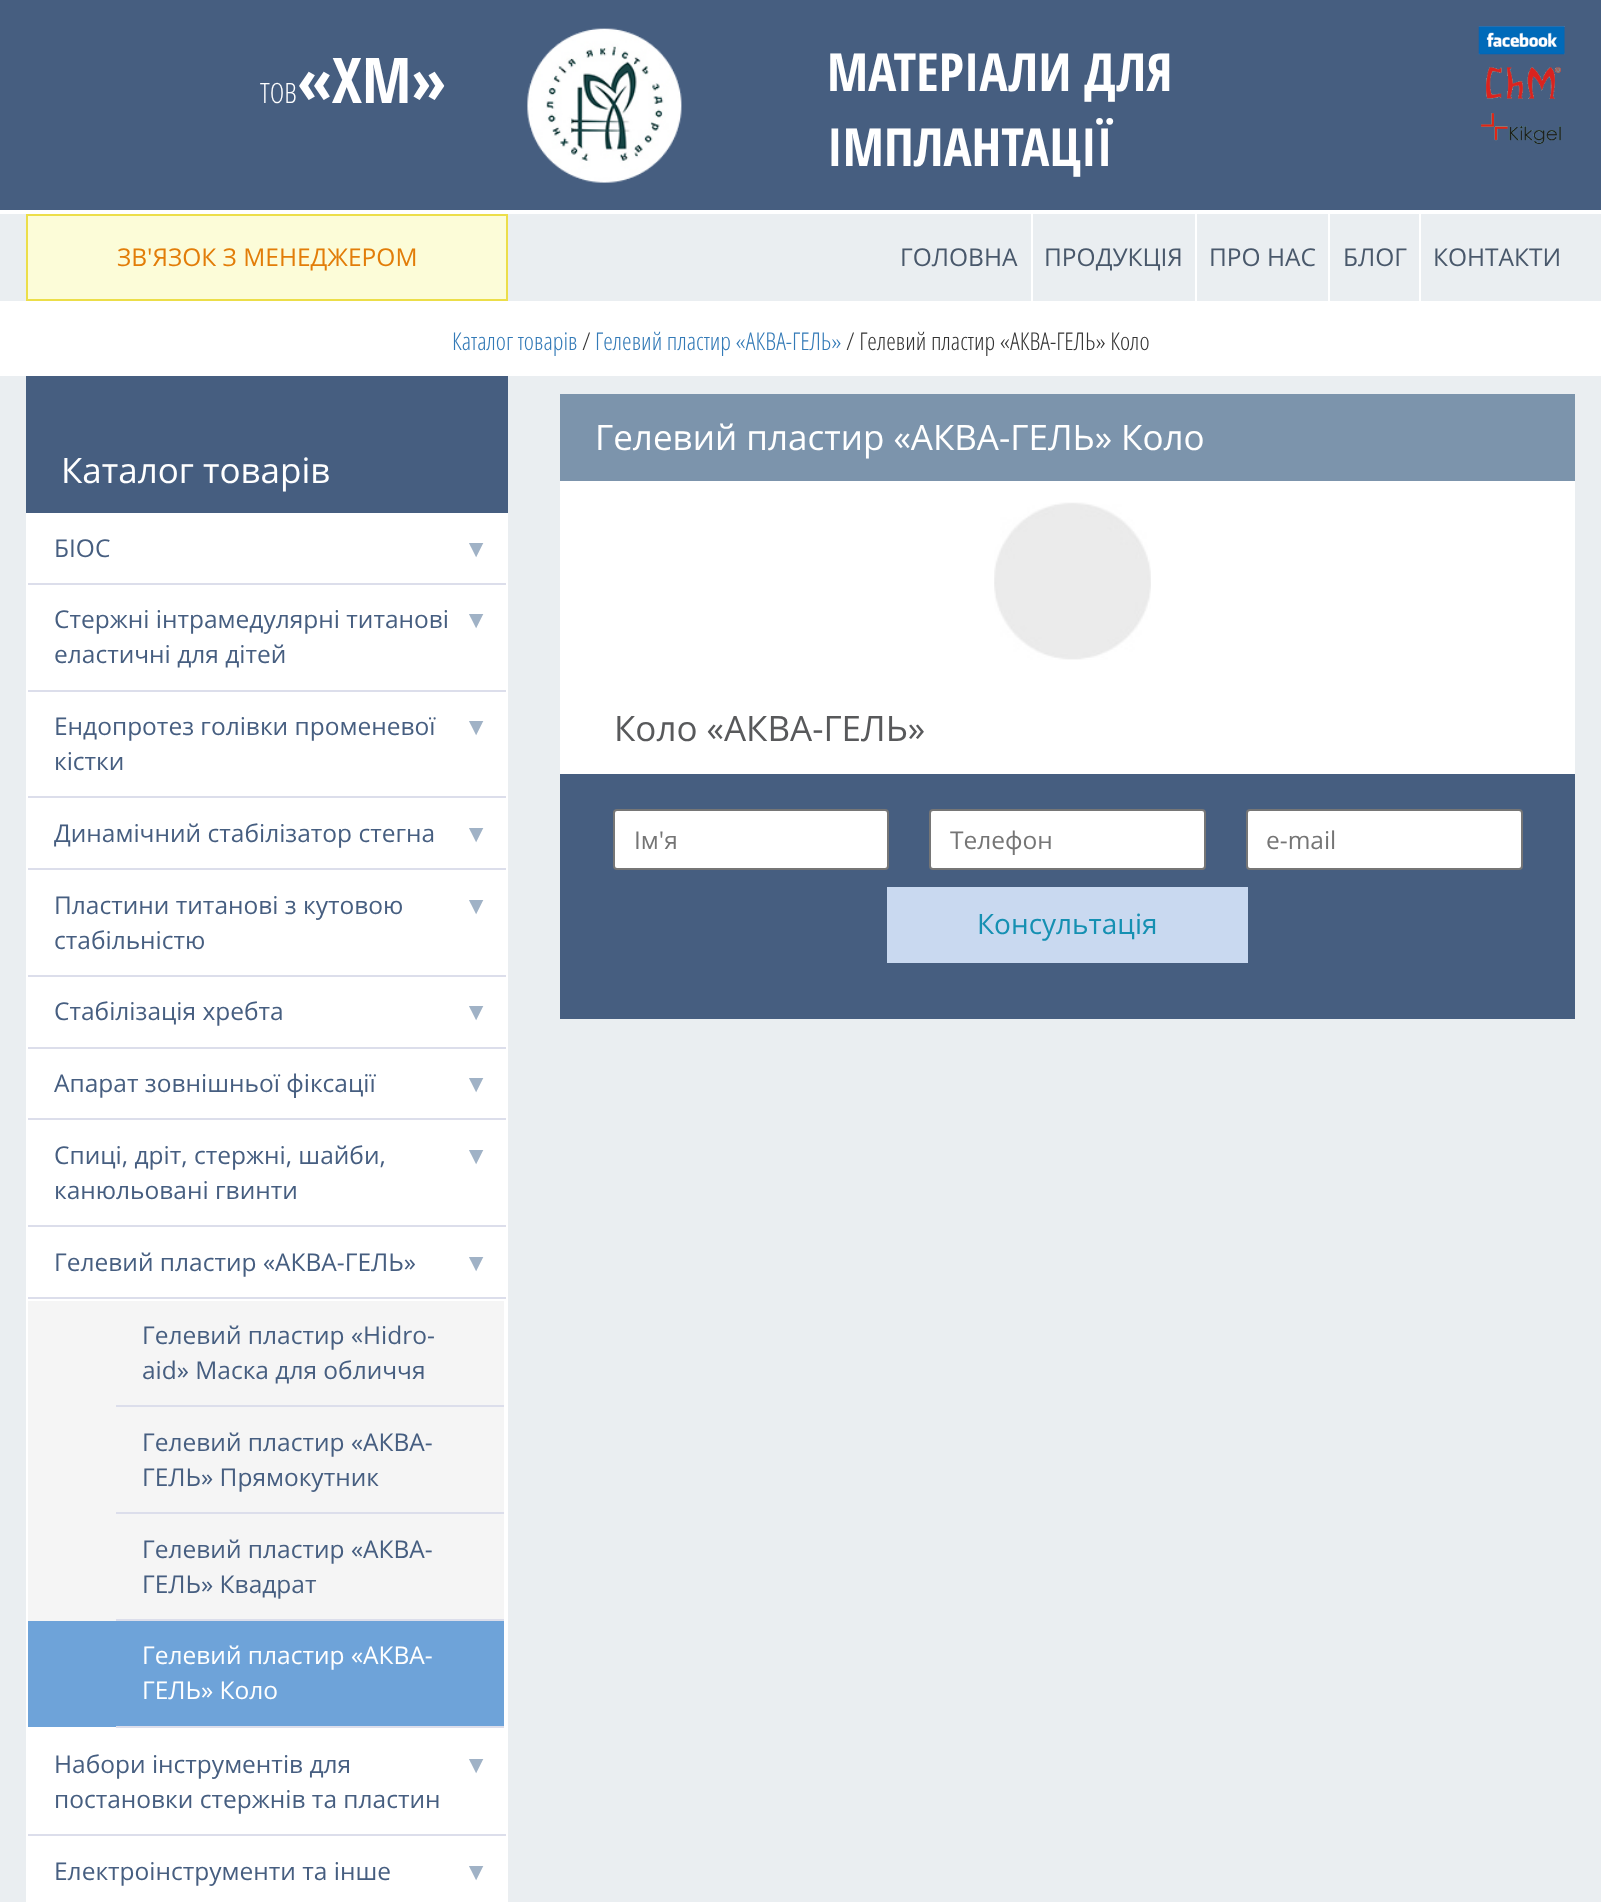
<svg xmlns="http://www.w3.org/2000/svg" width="1601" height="1902">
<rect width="100%" height="100%" fill="#eaeef1"/>
<rect width="1601" height="210" fill="#465e80"/>
<text x="260" y="103" style="font-family:Open Sans Condensed;font-size:28px;font-weight:300;fill:#fff">ТОВ</text>
<text x="297" y="103" style="font-family:Open Sans Condensed;font-size:63px;font-weight:bold;fill:#fff">«ХМ»</text>
<image x="527" y="28" width="155" height="155" href="media/1.png"/>
<text x="827" y="91" style="font-family:Open Sans Condensed;font-size:52.5px;font-weight:bold;fill:#fff">МАТЕРІАЛИ ДЛЯ</text>
<text x="827" y="166" style="font-family:Open Sans Condensed;font-size:52.5px;font-weight:bold;fill:#fff">ІМПЛАНТАЦІЇ</text>
<image x="1478" y="26" width="87" height="29" href="media/2.png"/>
<image x="1486" y="67" width="75" height="32" href="media/3.png"/>
<image x="1481" y="113" width="80" height="31" href="media/4.png"/>
<rect y="210" width="1601" height="4" fill="#fff"/>
<rect x="27" y="215" width="480" height="85" fill="#fcfcd8" stroke="#ecde49" stroke-width="2"/>
<text x="117" y="266" style="font-family:Open Sans;font-size:24.5px;fill:#e27d09">ЗВ'ЯЗОК З МЕНЕДЖЕРОМ</text>
<rect x="1031" y="214" width="2" height="87" fill="#fff"/>
<text x="900" y="266" style="font-family:Open Sans;font-size:24.5px;fill:#49586b">ГОЛОВНА</text>
<rect x="1195" y="214" width="2" height="87" fill="#fff"/>
<text x="1044" y="266" style="font-family:Open Sans;font-size:24.5px;fill:#49586b">ПРОДУКЦІЯ</text>
<rect x="1328" y="214" width="2" height="87" fill="#fff"/>
<text x="1209" y="266" style="font-family:Open Sans;font-size:24.5px;fill:#49586b">ПРО НАС</text>
<rect x="1419" y="214" width="2" height="87" fill="#fff"/>
<text x="1343" y="266" style="font-family:Open Sans;font-size:24.5px;fill:#49586b">БЛОГ</text>
<text x="1433" y="266" style="font-family:Open Sans;font-size:24.5px;fill:#49586b">КОНТАКТИ</text>
<rect y="301" width="1601" height="75" fill="#fff"/>
<text x="452" y="350" style="font-family:Open Sans Condensed;font-size:24.5px;font-weight:300;fill:#337ab7">Каталог товарів</text>
<text x="582" y="350" style="font-family:Open Sans Condensed;font-size:24.5px;font-weight:300;fill:#333">/</text>
<text x="595" y="350" style="font-family:Open Sans Condensed;font-size:24.5px;font-weight:300;fill:#337ab7">Гелевий пластир «АКВА-ГЕЛЬ»</text>
<text x="846" y="350" style="font-family:Open Sans Condensed;font-size:24.5px;font-weight:300;fill:#333">/ Гелевий пластир «АКВА-ГЕЛЬ» Коло</text>
<rect x="26" y="376" width="482" height="137" fill="#465e80"/>
<text x="61" y="483" style="font-family:Open Sans;font-size:35px;fill:#fff">Каталог товарів</text>
<rect x="26" y="513" width="482" height="1389" fill="#fff"/>
<rect x="28" y="583" width="478" height="2" fill="#dcdeeb"/>
<text x="54" y="557" style="font-family:Open Sans;font-size:24.5px;fill:#465e80">БІОС</text>
<text x="464" y="557" style="font-family:Liberation Sans;font-size:24.5px;fill:#a0b2c6">▼</text>
<rect x="28" y="690" width="478" height="2" fill="#dcdeeb"/>
<text x="54" y="628" style="font-family:Open Sans;font-size:24.5px;fill:#465e80">Стержні інтрамедулярні титанові</text>
<text x="464" y="628" style="font-family:Liberation Sans;font-size:24.5px;fill:#a0b2c6">▼</text>
<text x="54" y="663" style="font-family:Open Sans;font-size:24.5px;fill:#465e80">еластичні для дітей</text>
<rect x="28" y="796" width="478" height="2" fill="#dcdeeb"/>
<text x="54" y="735" style="font-family:Open Sans;font-size:24.5px;fill:#465e80">Ендопротез голівки променевої</text>
<text x="464" y="735" style="font-family:Liberation Sans;font-size:24.5px;fill:#a0b2c6">▼</text>
<text x="54" y="770" style="font-family:Open Sans;font-size:24.5px;fill:#465e80">кістки</text>
<rect x="28" y="868" width="478" height="2" fill="#dcdeeb"/>
<text x="54" y="842" style="font-family:Open Sans;font-size:24.5px;fill:#465e80">Динамічний стабілізатор стегна</text>
<text x="464" y="842" style="font-family:Liberation Sans;font-size:24.5px;fill:#a0b2c6">▼</text>
<rect x="28" y="975" width="478" height="2" fill="#dcdeeb"/>
<text x="54" y="914" style="font-family:Open Sans;font-size:24.5px;fill:#465e80">Пластини титанові з кутовою</text>
<text x="464" y="914" style="font-family:Liberation Sans;font-size:24.5px;fill:#a0b2c6">▼</text>
<text x="54" y="949" style="font-family:Open Sans;font-size:24.5px;fill:#465e80">стабільністю</text>
<rect x="28" y="1047" width="478" height="2" fill="#dcdeeb"/>
<text x="54" y="1020" style="font-family:Open Sans;font-size:24.5px;fill:#465e80">Стабілізація хребта</text>
<text x="464" y="1020" style="font-family:Liberation Sans;font-size:24.5px;fill:#a0b2c6">▼</text>
<rect x="28" y="1118" width="478" height="2" fill="#dcdeeb"/>
<text x="54" y="1092" style="font-family:Open Sans;font-size:24.5px;fill:#465e80">Апарат зовнішньої фіксації</text>
<text x="464" y="1092" style="font-family:Liberation Sans;font-size:24.5px;fill:#a0b2c6">▼</text>
<rect x="28" y="1225" width="478" height="2" fill="#dcdeeb"/>
<text x="54" y="1164" style="font-family:Open Sans;font-size:24.5px;fill:#465e80">Спиці, дріт, стержні, шайби,</text>
<text x="464" y="1164" style="font-family:Liberation Sans;font-size:24.5px;fill:#a0b2c6">▼</text>
<text x="54" y="1199" style="font-family:Open Sans;font-size:24.5px;fill:#465e80">канюльовані гвинти</text>
<rect x="28" y="1297" width="478" height="2" fill="#dcdeeb"/>
<text x="54" y="1271" style="font-family:Open Sans;font-size:24.5px;fill:#465e80">Гелевий пластир «АКВА-ГЕЛЬ»</text>
<text x="464" y="1271" style="font-family:Liberation Sans;font-size:24.5px;fill:#a0b2c6">▼</text>
<rect x="28" y="1301" width="476" height="320" fill="#f5f5f5"/>
<rect x="116" y="1405" width="388" height="2" fill="#dcdeeb"/>
<text x="142" y="1344" style="font-family:Open Sans;font-size:24.5px;fill:#465e80">Гелевий пластир «Hidro-</text>
<text x="142" y="1379" style="font-family:Open Sans;font-size:24.5px;fill:#465e80">aid» Маска для обличчя</text>
<rect x="116" y="1512" width="388" height="2" fill="#dcdeeb"/>
<text x="142" y="1451" style="font-family:Open Sans;font-size:24.5px;fill:#465e80">Гелевий пластир «АКВА-</text>
<text x="142" y="1486" style="font-family:Open Sans;font-size:24.5px;fill:#465e80">ГЕЛЬ» Прямокутник</text>
<rect x="116" y="1619" width="388" height="2" fill="#dcdeeb"/>
<text x="142" y="1558" style="font-family:Open Sans;font-size:24.5px;fill:#465e80">Гелевий пластир «АКВА-</text>
<text x="142" y="1593" style="font-family:Open Sans;font-size:24.5px;fill:#465e80">ГЕЛЬ» Квадрат</text>
<rect x="28" y="1621" width="476" height="106" fill="#6ea3d9"/>
<rect x="116" y="1726" width="388" height="2" fill="#dcdeeb"/>
<text x="142" y="1664" style="font-family:Open Sans;font-size:24.5px;fill:#fff">Гелевий пластир «АКВА-</text>
<text x="142" y="1699" style="font-family:Open Sans;font-size:24.5px;fill:#fff">ГЕЛЬ» Коло</text>
<rect x="28" y="1834" width="478" height="2" fill="#dcdeeb"/>
<text x="54" y="1773" style="font-family:Open Sans;font-size:24.5px;fill:#465e80">Набори інструментів для</text>
<text x="464" y="1773" style="font-family:Liberation Sans;font-size:24.5px;fill:#a0b2c6">▼</text>
<text x="54" y="1808" style="font-family:Open Sans;font-size:24.5px;fill:#465e80">постановки стержнів та пластин</text>
<text x="54" y="1880" style="font-family:Open Sans;font-size:24.5px;fill:#465e80">Електроінструменти та інше</text>
<text x="464" y="1880" style="font-family:Liberation Sans;font-size:24.5px;fill:#a0b2c6">▼</text>
<rect x="560" y="394" width="1015" height="87" fill="#7c94ac"/>
<text x="595" y="450" style="font-family:Open Sans;font-size:35px;fill:#fff">Гелевий пластир «АКВА-ГЕЛЬ» Коло</text>
<rect x="560" y="481" width="1015" height="293" fill="#fff"/>
<image x="994" y="502" width="157" height="158" href="media/5.png"/>
<text x="614" y="741" style="font-family:Open Sans;font-size:35px;fill:#58595b">Коло «АКВА-ГЕЛЬ»</text>
<rect x="560" y="774" width="1015" height="245" fill="#465e80"/>
<rect x="614" y="810" width="274" height="59" rx="3" fill="#fff" stroke="#767676" stroke-width="2"/>
<text x="634" y="849" style="font-family:Open Sans;font-size:24.5px;fill:#757575">Ім'я</text>
<rect x="930" y="810" width="275" height="59" rx="3" fill="#fff" stroke="#767676" stroke-width="2"/>
<text x="950" y="849" style="font-family:Open Sans;font-size:24.5px;fill:#757575">Телефон</text>
<rect x="1247" y="810" width="275" height="59" rx="3" fill="#fff" stroke="#767676" stroke-width="2"/>
<text x="1266" y="849" style="font-family:Open Sans;font-size:24.5px;fill:#757575">e-mail</text>
<rect x="887" y="887" width="361" height="76" fill="#c9d9f0"/>
<text x="977" y="934" style="font-family:Open Sans;font-size:28px;fill:#1590b2">Консультація</text>
</svg>
